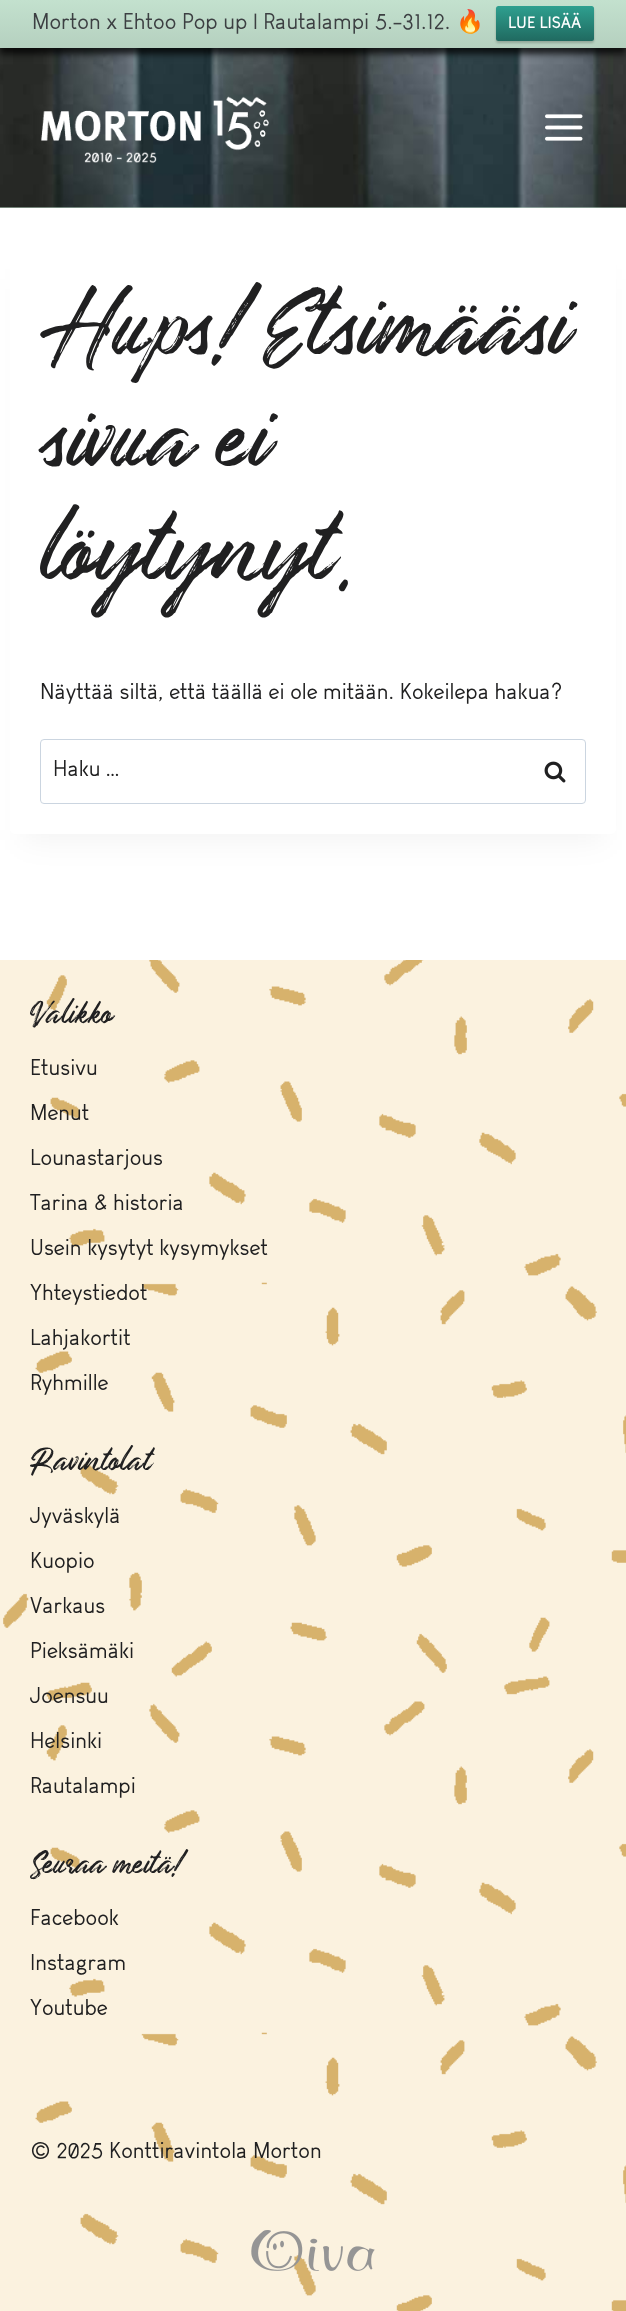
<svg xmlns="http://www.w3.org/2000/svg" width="626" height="2311">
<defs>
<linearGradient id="g1" gradientUnits="userSpaceOnUse" x1="313" y1="0" x2="313" y2="48"><stop offset="0" stop-color="#c3e1ce"/><stop offset="1" stop-color="#b5d0bf"/></linearGradient>
<linearGradient id="g2" gradientUnits="userSpaceOnUse" x1="545" y1="6.2" x2="545" y2="41"><stop offset="0" stop-color="#2e9f8f"/><stop offset="1" stop-color="#206a60"/></linearGradient>
</defs>
<rect width="100%" height="100%" fill="#fff"/>
<rect y="207" width="626" height="1" fill="#c3e1ce"/>
<image x="0" y="48" width="626" height="160" href="media/1.png"/>
<rect y="6" width="626" height="48" fill="#000000bf" filter="blur(3px)"/>
<rect width="626" height="48" fill="url(#g1)"/>
<text x="32" y="29" style="font-family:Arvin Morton;font-size:22.5px;fill:#3c3f42">Morton x Ehtoo Pop up | Rautalampi 5.-31.12.</text>
<text x="456" y="29" style="font-family:Noto Color Emoji;font-size:22.5px;fill:#3c3f42">🔥</text>
<rect x="496" y="8" width="98" height="35" rx="2.5" fill="#00000033" filter="blur(1px)"/>
<rect x="496" y="6" width="98" height="35" rx="2.5" fill="url(#g2)"/>
<text x="508" y="28" style="font-family:Arvin Morton;font-size:16.25px;font-weight:bold;fill:#fff">LUE LISÄÄ</text>
<image x="41" y="96" width="228" height="67" href="media/2.png"/>
<image x="545" y="114" width="38" height="27" href="media/3.png"/>
<rect x="23" y="279" width="581" height="561" fill="#0000000d" filter="blur(15.5px)"/>
<rect x="10" y="248" width="606" height="586" rx="5" fill="#fff"/>
<text x="40" y="354" style="font-family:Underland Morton;font-size:75px;fill:#202021">Hups! Etsimääsi</text>
<text x="40" y="466" style="font-family:Underland Morton;font-size:75px;fill:#202021">sivua ei</text>
<text x="40" y="579" style="font-family:Underland Morton;font-size:75px;fill:#202021">löytynyt.</text>
<text x="40" y="699" style="font-family:Arvin Morton;font-size:22.5px;fill:#202021">Näyttää siltä, että täällä ei ole mitään. Kokeilepa hakua?</text>
<rect x="40.5" y="739.5" width="545" height="64" rx="3.5" fill="none" stroke="#cbd5e0"/>
<text x="53" y="776" style="font-family:Arvin Morton;font-size:22.5px;fill:#202021">Haku …</text>
<image x="544" y="761" width="22" height="22" href="media/4.png"/>
<rect y="960" width="626" height="1351" fill="#fbf2df"/>
<image x="3" y="960" width="623" height="1351" href="media/5.png"/>
<text x="30" y="1023" style="font-family:Underland Morton;font-size:25px;fill:#202021">Valikko</text>
<text x="30" y="1075" style="font-family:Arvin Morton;font-size:22.5px;fill:#202021">Etusivu</text>
<text x="30" y="1120" style="font-family:Arvin Morton;font-size:22.5px;fill:#202021">Menut</text>
<text x="30" y="1165" style="font-family:Arvin Morton;font-size:22.5px;fill:#202021">Lounastarjous</text>
<text x="30" y="1210" style="font-family:Arvin Morton;font-size:22.5px;fill:#202021">Tarina &amp; historia</text>
<text x="30" y="1255" style="font-family:Arvin Morton;font-size:22.5px;fill:#202021">Usein kysytyt kysymykset</text>
<text x="30" y="1300" style="font-family:Arvin Morton;font-size:22.5px;fill:#202021">Yhteystiedot</text>
<text x="30" y="1345" style="font-family:Arvin Morton;font-size:22.5px;fill:#202021">Lahjakortit</text>
<text x="30" y="1390" style="font-family:Arvin Morton;font-size:22.5px;fill:#202021">Ryhmille</text>
<text x="30" y="1470" style="font-family:Underland Morton;font-size:25px;fill:#202021">Ravintolat</text>
<text x="30" y="1523" style="font-family:Arvin Morton;font-size:22.5px;fill:#202021">Jyväskylä</text>
<text x="30" y="1568" style="font-family:Arvin Morton;font-size:22.5px;fill:#202021">Kuopio</text>
<text x="30" y="1613" style="font-family:Arvin Morton;font-size:22.5px;fill:#202021">Varkaus</text>
<text x="30" y="1658" style="font-family:Arvin Morton;font-size:22.5px;fill:#202021">Pieksämäki</text>
<text x="30" y="1703" style="font-family:Arvin Morton;font-size:22.5px;fill:#202021">Joensuu</text>
<text x="30" y="1748" style="font-family:Arvin Morton;font-size:22.5px;fill:#202021">Helsinki</text>
<text x="30" y="1793" style="font-family:Arvin Morton;font-size:22.5px;fill:#202021">Rautalampi</text>
<text x="30" y="1873" style="font-family:Underland Morton;font-size:25px;fill:#202021">Seuraa meitä!</text>
<text x="30" y="1925" style="font-family:Arvin Morton;font-size:22.5px;fill:#202021">Facebook</text>
<text x="30" y="1970" style="font-family:Arvin Morton;font-size:22.5px;fill:#202021">Instagram</text>
<text x="30" y="2015" style="font-family:Arvin Morton;font-size:22.5px;fill:#202021">Youtube</text>
<text x="30" y="2158" style="font-family:Arvin Morton;font-size:22.5px;fill:#202021">© 2025 Konttiravintola Morton</text>
<image x="251" y="2230" width="124" height="41" href="media/6.png"/>
</svg>
